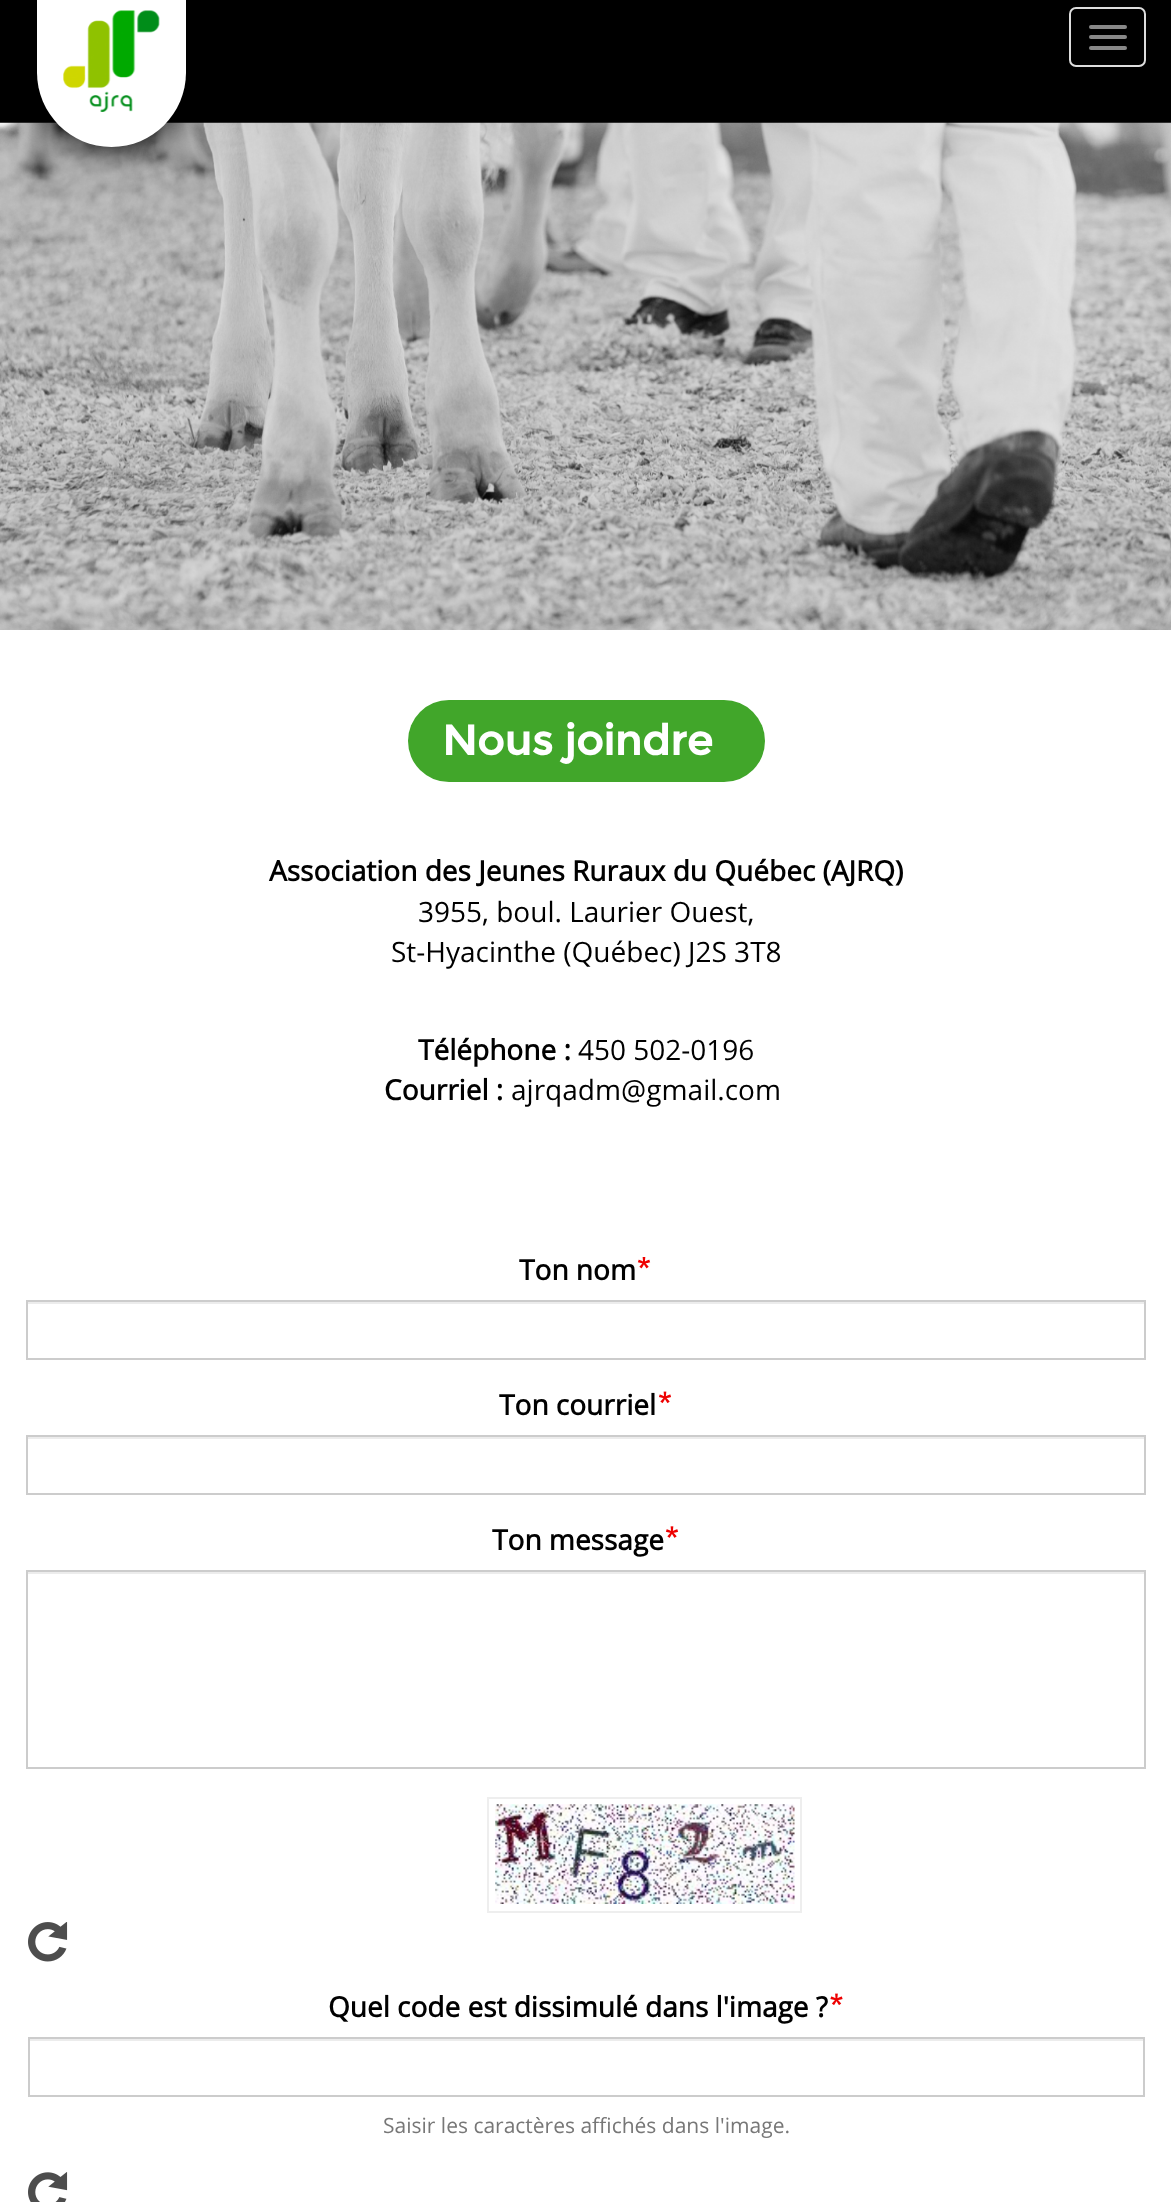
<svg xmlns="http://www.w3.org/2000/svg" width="1171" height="2202">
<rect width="100%" height="100%" fill="#fff"/>
<rect width="1171" height="123" fill="#000"/>
<image x="0" y="122" width="1171" height="508" href="media/2.png"/>
<rect x="37" y="-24" width="149" height="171" rx="74.5" fill="#000" filter="blur(17.5px)"/>
<path d="M37-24h149v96.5c0 41-33.5 74.5-74.5 74.5c-41 0-74.5-33.5-74.5-74.5z" fill="#fff"/>
<image x="63" y="10" width="97" height="102" href="media/1.png"/>
<rect x="1070" y="8" width="75" height="58" rx="6" fill="none" stroke="#ddd" stroke-width="2"/>
<rect x="1089" y="25" width="38" height="4" rx="2" fill="#888"/>
<rect x="1089" y="35" width="38" height="4" rx="2" fill="#888"/>
<rect x="1089" y="46" width="38" height="4" rx="2" fill="#888"/>
<rect x="408" y="700" width="357" height="82" rx="41" fill="#41a62a"/>
<text x="442" y="755" style="font-family:Montserrat;font-size:42px;font-weight:bold;fill:#fff">Nous joindre</text>
<text x="269" y="881" style="font-family:Open Sans;font-size:28px;font-weight:bold;fill:#000">Association des Jeunes Ruraux du Québec (AJRQ)</text>
<text x="418" y="922" style="font-family:Open Sans;font-size:28px;fill:#000">3955, boul. Laurier Ouest,</text>
<text x="391" y="962" style="font-family:Open Sans;font-size:28px;fill:#000">St-Hyacinthe (Québec) J2S 3T8</text>
<text x="418" y="1060" style="font-family:Open Sans;font-size:28px;font-weight:bold;fill:#000">Téléphone :</text>
<text x="578" y="1060" style="font-family:Open Sans;font-size:28px;fill:#000">450 502-0196</text>
<text x="384" y="1100" style="font-family:Open Sans;font-size:28px;font-weight:bold;fill:#000">Courriel :</text>
<text x="511" y="1100" style="font-family:Open Sans;font-size:28px;fill:#000">ajrqadm@gmail.com</text>
<text x="519" y="1280" style="font-family:Open Sans;font-size:28px;font-weight:bold;fill:#000">Ton nom</text>
<image x="637" y="1257" width="14" height="12" href="media/3.png"/>
<rect x="28" y="1302" width="1117" height="2" fill="#ececec"/>
<rect x="27" y="1301" width="1118" height="58" fill="none" stroke="#ccc" stroke-width="2"/>
<text x="499" y="1415" style="font-family:Open Sans;font-size:28px;font-weight:bold;fill:#000">Ton courriel</text>
<image x="659" y="1391" width="12" height="13" href="media/4.png"/>
<rect x="28" y="1437" width="1117" height="2" fill="#ececec"/>
<rect x="27" y="1436" width="1118" height="58" fill="none" stroke="#ccc" stroke-width="2"/>
<text x="492" y="1550" style="font-family:Open Sans;font-size:28px;font-weight:bold;fill:#000">Ton message</text>
<image x="665" y="1526" width="14" height="12" href="media/5.png"/>
<rect x="28" y="1572" width="1117" height="2" fill="#ececec"/>
<rect x="27" y="1571" width="1118" height="197" fill="none" stroke="#ccc" stroke-width="2"/>
<rect x="488" y="1798" width="313" height="114" fill="none" stroke="#eee" stroke-width="2"/>
<image x="495" y="1804" width="300" height="100" href="media/6.png"/>
<image x="28" y="1922" width="40" height="40" href="media/7.png"/>
<text x="328" y="2017" style="font-family:Open Sans;font-size:28px;font-weight:bold;fill:#000">Quel code est dissimulé dans l'image ?</text>
<image x="830" y="1993" width="13" height="12" href="media/8.png"/>
<rect x="30" y="2039" width="1113" height="2" fill="#ececec"/>
<rect x="29" y="2038" width="1115" height="58" fill="none" stroke="#ccc" stroke-width="2"/>
<text x="383" y="2133" style="font-family:Open Sans;font-size:21px;fill:#777">Saisir les caractères affichés dans l'image.</text>
<image x="28" y="2172" width="40" height="30" href="media/9.png"/>
</svg>
